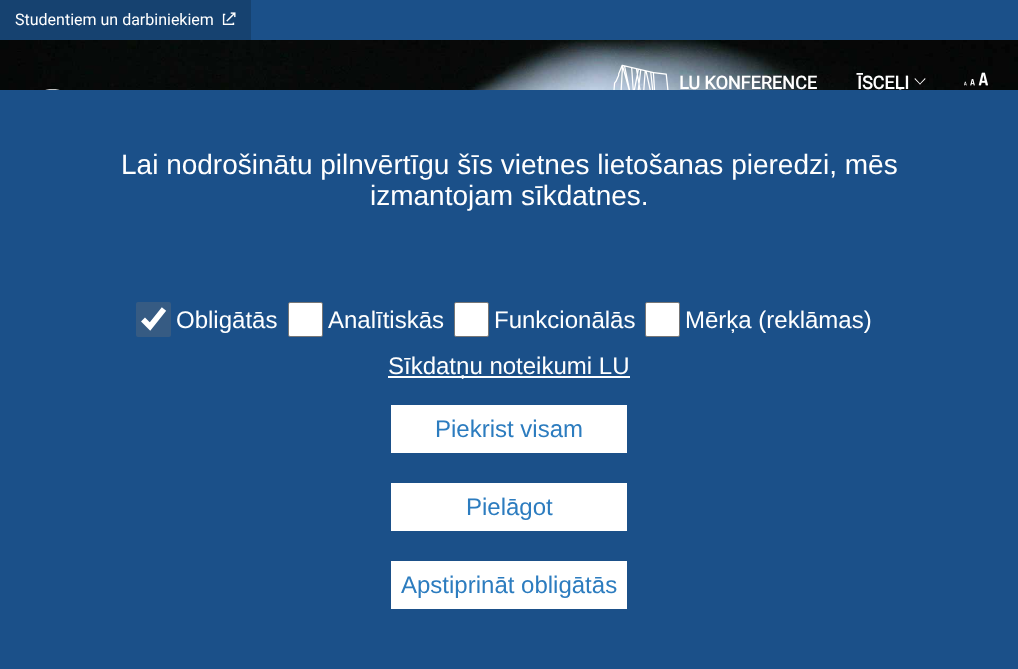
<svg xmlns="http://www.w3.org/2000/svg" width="1018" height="669">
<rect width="100%" height="100%" fill="#fff"/>
<rect x="251" width="767" height="40" fill="#1b5089"/>
<rect width="251" height="40" fill="#164270"/>
<text x="15" y="25" style="font-family:Roboto;font-size:16px;fill:#fff">Studentiem un darbiniekiem</text>
<image x="222" y="12" width="14" height="13" href="media/1.png"/>
<image x="0" y="40" width="1018" height="50" href="media/5.png"/>
<image x="45" y="89" width="15" height="1" href="media/2.png"/>
<image x="613" y="64" width="56" height="26" href="media/3.png"/>
<text x="679" y="89" style="font-family:Roboto;font-size:18px;font-weight:bold;fill:#fff">LU KONFERENCE</text>
<text x="857" y="89" style="font-family:Roboto;font-size:18px;font-weight:bold;fill:#fff">ĪSCEĻI</text>
<path d="M925 78l.5 1l-5.5 5.5l-.5-.5z" fill="#fff"/>
<path d="M915 78l5.5 6l-.5 .5l-5.5-5.5z" fill="#fff"/>
<image x="964" y="72" width="24" height="14" href="media/4.png"/>
<rect y="90" width="1018" height="579" fill="#1b5089"/>
<text x="121" y="174" style="font-family:Liberation Sans;font-size:28px;fill:#fff">Lai nodrošinātu pilnvērtīgu šīs vietnes lietošanas pieredzi, mēs</text>
<text x="370" y="205" style="font-family:Liberation Sans;font-size:28px;fill:#fff">izmantojam sīkdatnes.</text>
<rect x="136" y="302" width="35" height="35" rx="2" fill="#365b83"/>
<path d="M143 319.5l7 7l14-17.5" fill="none" stroke="#fff" stroke-width="5.6"/>
<text x="176" y="328" style="font-family:Liberation Sans;font-size:24px;fill:#fff">Obligātās</text>
<rect x="288.5" y="302.5" width="34" height="34" rx="1.5" fill="#fff" stroke="#767676"/>
<text x="328" y="328" style="font-family:Liberation Sans;font-size:24px;fill:#fff">Analītiskās</text>
<rect x="454.5" y="302.5" width="34" height="34" rx="1.5" fill="#fff" stroke="#767676"/>
<text x="494" y="328" style="font-family:Liberation Sans;font-size:24px;fill:#fff">Funkcionālās</text>
<rect x="645.5" y="302.5" width="34" height="34" rx="1.5" fill="#fff" stroke="#767676"/>
<text x="685" y="328" style="font-family:Liberation Sans;font-size:24px;fill:#fff">Mērķa (reklāmas)</text>
<rect x="388" y="376" width="242" height="2" fill="#fff"/>
<text x="388" y="374" style="font-family:Liberation Sans;font-size:24px;fill:#fff">Sīkdatņu noteikumi LU</text>
<rect x="391" y="405" width="236" height="48" fill="#fff"/>
<text x="435" y="437" style="font-family:Liberation Sans;font-size:24px;fill:#2c7cbf">Piekrist visam</text>
<rect x="391" y="483" width="236" height="48" fill="#fff"/>
<text x="466" y="515" style="font-family:Liberation Sans;font-size:24px;fill:#2c7cbf">Pielāgot</text>
<rect x="391" y="561" width="236" height="48" fill="#fff"/>
<text x="401" y="593" style="font-family:Liberation Sans;font-size:24px;fill:#2c7cbf">Apstiprināt obligātās</text>
</svg>
